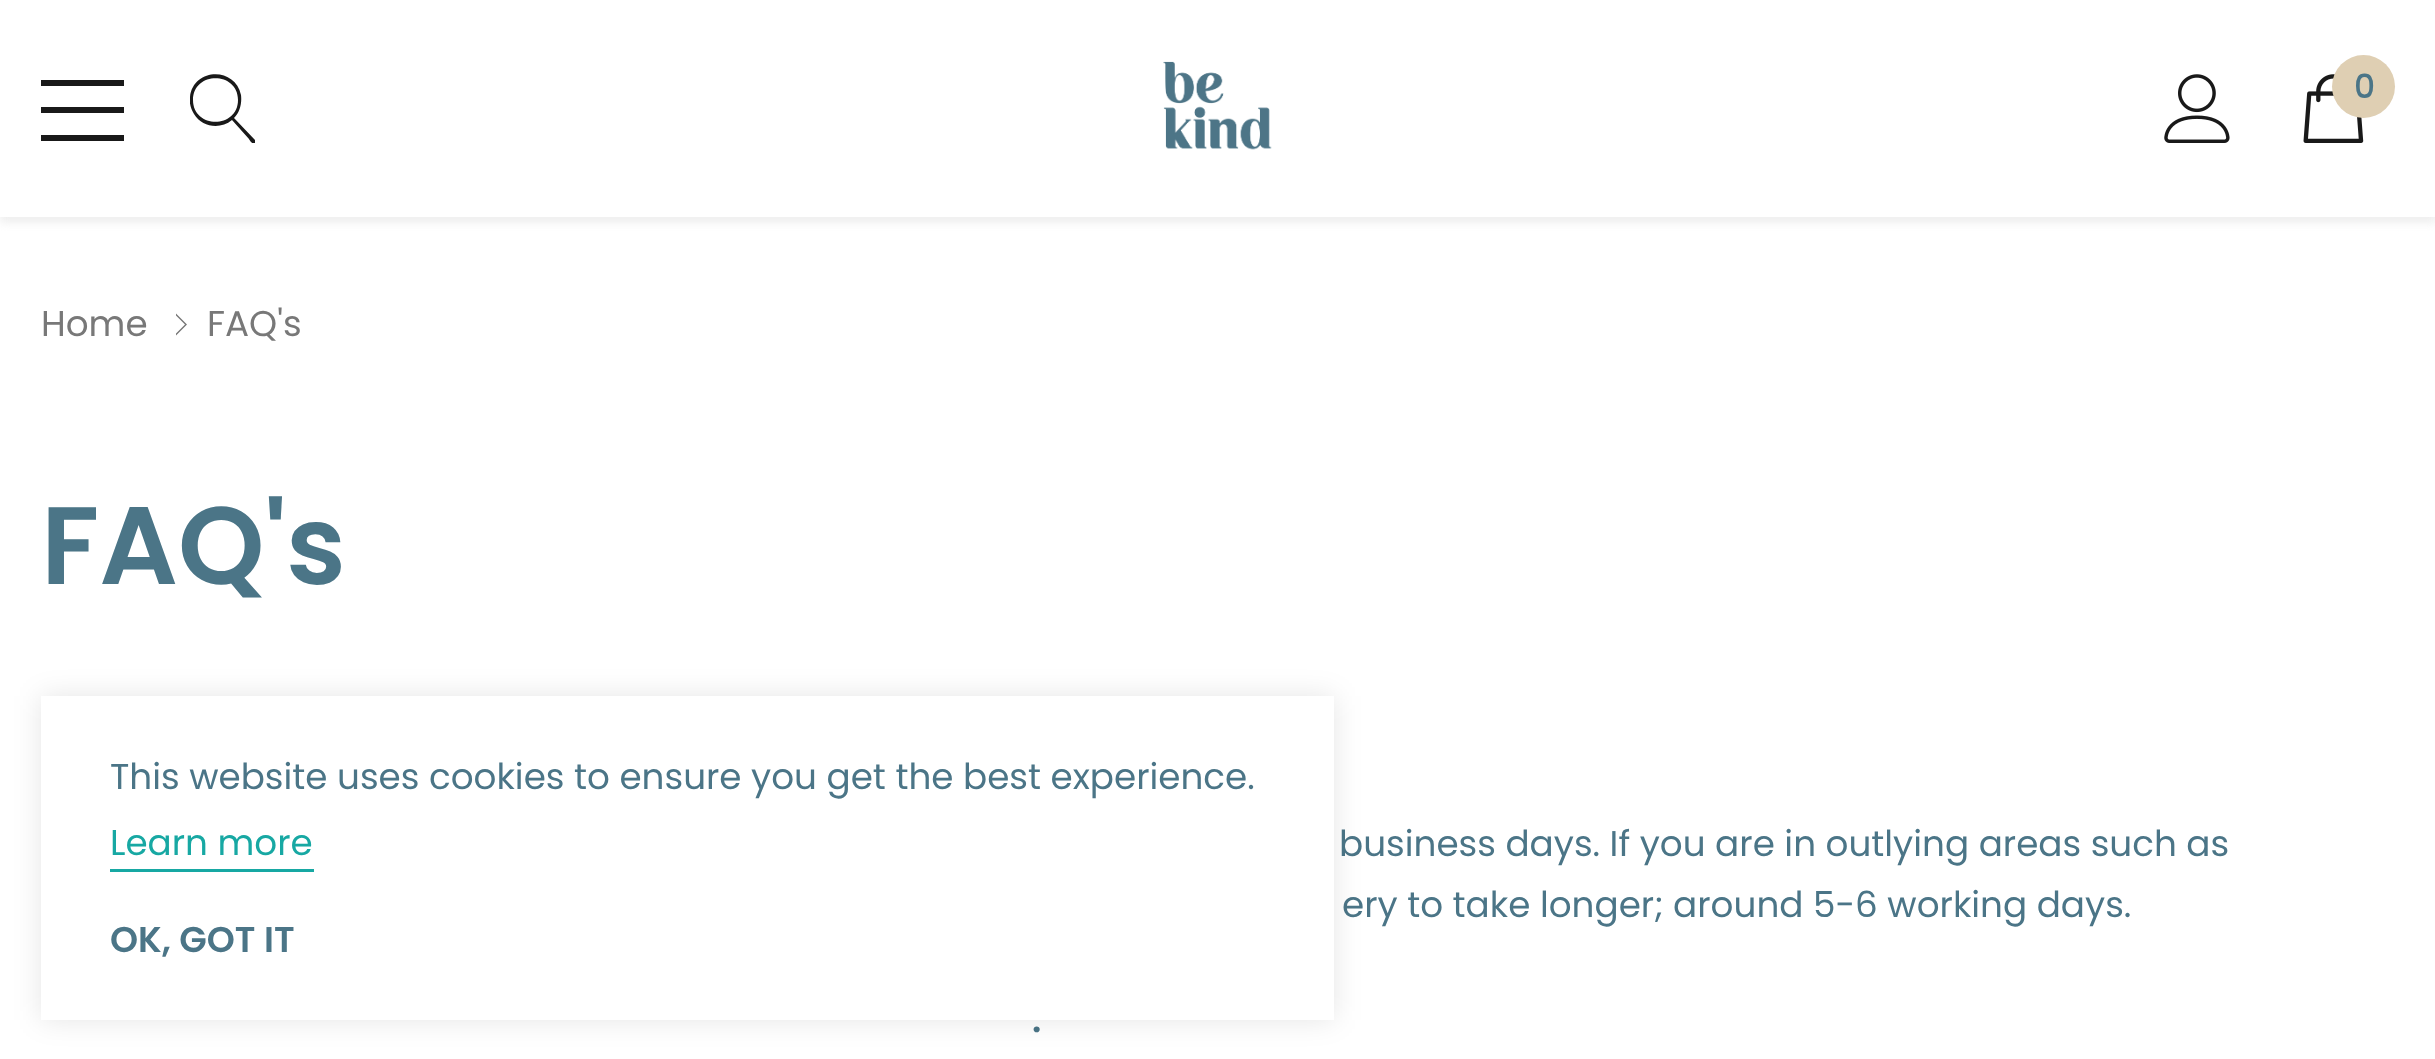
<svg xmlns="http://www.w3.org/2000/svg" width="2435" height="1059">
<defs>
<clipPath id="clip1"><rect x="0" y="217" width="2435" height="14"/></clipPath>
<clipPath id="clip2"><rect x="190" y="74" width="69" height="69"/></clipPath>
</defs>
<rect width="100%" height="100%" fill="#fff"/>
<g clip-path="url(#clip1)">
<rect y="6" width="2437" height="217" fill="#efefef" filter="blur(4px)"/>
</g>
<rect x="41" y="107" width="83" height="6" fill="#191919"/>
<rect x="41" y="80" width="83" height="6" fill="#191919"/>
<rect x="41" y="135" width="83" height="6" fill="#191919"/>
<g clip-path="url(#clip2)">
<path d="M255 140l-21-22c6-6 8-15 7-23c-6-29-48-27-51 2c-1 6 1 12 4 17c8 13 26 16 38 6l17 19c0 0 3 6 6 4c0-1 0-2 0-3zm-62-40c0-29 45-29 45 0c0 29-45 29-45 0z" fill="#191919"/>
</g>
<image x="1163" y="61" width="109" height="89" href="media/1.png"/>
<image x="2164" y="74" width="66" height="69" href="media/2.png"/>
<image x="2303" y="74" width="61" height="69" href="media/3.png"/>
<circle cx="2363.5" cy="86.5" r="31.5" fill="#dfcfb3"/>
<text x="2354" y="98" style="font-family:Poppins;font-size:33px;font-weight:500;fill:#4b7587">0</text>
<text x="41" y="336" style="font-family:Poppins;font-size:35.75px;fill:#787878">Home</text>
<path d="M185 324.5l-9 9v2l11-11l-11-11v2z" fill="#787878"/>
<text x="207" y="336" style="font-family:Poppins;font-size:35.75px;fill:#787878">FAQ's</text>
<text x="41" y="584" style="font-family:Poppins;font-size:110px;font-weight:600;fill:#4b7587">FAQ's</text>
<text x="1339" y="856" style="font-family:Poppins;font-size:35.75px;fill:#4b7587">business days. If you are in outlying areas such as</text>
<text x="1342" y="917" style="font-family:Poppins;font-size:35.75px;fill:#4b7587">ery to take longer; around 5-6 working days.</text>
<text x="1032" y="1032" style="font-family:Poppins;font-size:35.75px;font-weight:600;fill:#4b7587">.</text>
<rect x="41" y="696" width="1293" height="324" fill="#0000001a" filter="blur(14px)"/>
<rect x="41" y="696" width="1293" height="324" fill="#fff"/>
<text x="110" y="789" style="font-family:Poppins;font-size:35.75px;fill:#4b7587">This website uses cookies to ensure you get the best experience.</text>
<text x="110" y="855" style="font-family:Poppins;font-size:35.75px;fill:#17a8a3">Learn more</text>
<rect x="110" y="869" width="204" height="3" fill="#17a8a3"/>
<text x="110" y="952" style="font-family:Poppins;font-size:35.75px;font-weight:600;fill:#4b7587">OK, GOT IT</text>
</svg>
